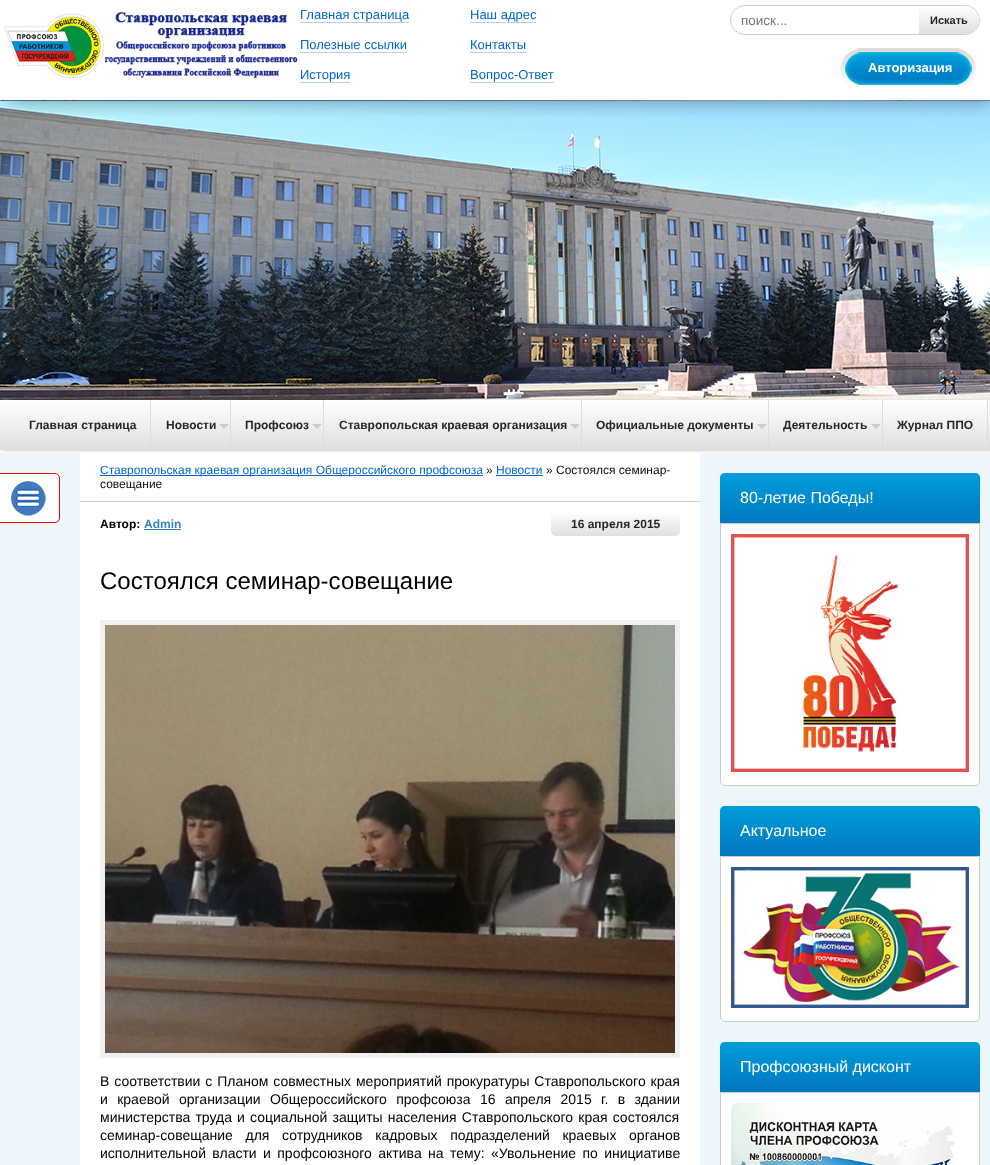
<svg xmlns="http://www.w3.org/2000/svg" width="990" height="1165">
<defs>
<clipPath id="clip1"><rect x="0" y="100" width="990" height="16"/></clipPath>
<linearGradient id="g1" gradientUnits="userSpaceOnUse" x1="949" y1="6" x2="949" y2="34"><stop offset="0" stop-color="#fff"/><stop offset="1" stop-color="#dfdfdf"/></linearGradient>
<linearGradient id="g2" gradientUnits="userSpaceOnUse" x1="500" y1="400" x2="500" y2="450"><stop offset="0" stop-color="#fff"/><stop offset="1" stop-color="#dfdfdf"/></linearGradient>
<linearGradient id="g3" gradientUnits="userSpaceOnUse" x1="616" y1="512" x2="616" y2="536"><stop offset="0" stop-color="#fff"/><stop offset="1" stop-color="#dfdfdf"/></linearGradient>
<linearGradient id="g4" gradientUnits="userSpaceOnUse" x1="850" y1="473" x2="850" y2="523"><stop offset="0" stop-color="#009dda"/><stop offset="1" stop-color="#0078c1"/></linearGradient>
<linearGradient id="g5" gradientUnits="userSpaceOnUse" x1="850" y1="806" x2="850" y2="856"><stop offset="0" stop-color="#009dda"/><stop offset="1" stop-color="#0078c1"/></linearGradient>
<linearGradient id="g6" gradientUnits="userSpaceOnUse" x1="850" y1="1042" x2="850" y2="1092"><stop offset="0" stop-color="#009dda"/><stop offset="1" stop-color="#0078c1"/></linearGradient>
</defs>
<rect width="100%" height="100%" fill="#fff"/>
<rect x="2" y="402" width="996" height="46" fill="#000000cc" filter="blur(2.5px)"/>
<image x="0" y="100" width="990" height="300" href="media/3.png"/>
<g clip-path="url(#clip1)">
<rect x="10" y="20" width="980" height="80" fill="#00000066" filter="blur(10px)"/>
</g>
<image x="4" y="12" width="294" height="67" href="media/1.png"/>
<text x="300" y="19" style="font-family:Liberation Sans;font-size:13px;fill:#06c">Главная страница</text>
<rect x="300" y="22" width="109" height="1" fill="#b3d1ef"/>
<text x="300" y="49" style="font-family:Liberation Sans;font-size:13px;fill:#06c">Полезные ссылки</text>
<rect x="300" y="52" width="107" height="1" fill="#b3d1ef"/>
<text x="300" y="79" style="font-family:Liberation Sans;font-size:13px;fill:#06c">История</text>
<rect x="300" y="82" width="50" height="1" fill="#b3d1ef"/>
<text x="470" y="19" style="font-family:Liberation Sans;font-size:13px;fill:#06c">Наш адрес</text>
<rect x="470" y="22" width="66" height="1" fill="#b3d1ef"/>
<text x="470" y="49" style="font-family:Liberation Sans;font-size:13px;fill:#06c">Контакты</text>
<rect x="470" y="52" width="56" height="1" fill="#b3d1ef"/>
<text x="470" y="79" style="font-family:Liberation Sans;font-size:13px;fill:#06c">Вопрос-Ответ</text>
<rect x="470" y="82" width="84" height="1" fill="#b3d1ef"/>
<rect x="730.5" y="5.5" width="249" height="29" rx="14.5" fill="none" stroke="#cecece"/>
<text x="741" y="25" style="font-family:Liberation Sans;font-size:13.5px;fill:#757575">поиск...</text>
<path d="M919 6h46c7.5 0 14 6.5 14 14c0 7.5-6.5 14-14 14h-46z" fill="url(#g1)"/>
<text x="930" y="24" style="font-family:Liberation Sans;font-size:11px;font-weight:bold;fill:#262626">Искать</text>
<image x="840" y="48" width="136" height="37" href="media/2.png"/>
<text x="868" y="72" style="font-family:Liberation Sans;font-size:13px;font-weight:bold;fill:#fff">Авторизация</text>
<rect y="400" width="990" height="50" fill="url(#g2)"/>
<rect x="150" y="400" width="1" height="50" fill="#ddd"/>
<text x="29" y="429" style="font-family:Liberation Sans;font-size:12px;font-weight:bold;fill:#262626">Главная страница</text>
<rect x="230" y="400" width="1" height="50" fill="#ddd"/>
<text x="166" y="429" style="font-family:Liberation Sans;font-size:12px;font-weight:bold;fill:#262626">Новости</text>
<path d="M219 424h10l-5 5z" fill="#ccc"/>
<rect x="323" y="400" width="1" height="50" fill="#ddd"/>
<text x="245" y="429" style="font-family:Liberation Sans;font-size:12px;font-weight:bold;fill:#262626">Профсоюз</text>
<path d="M312 424h10l-5 5z" fill="#ccc"/>
<rect x="581" y="400" width="1" height="50" fill="#ddd"/>
<text x="339" y="429" style="font-family:Liberation Sans;font-size:12px;font-weight:bold;fill:#262626">Ставропольская краевая организация</text>
<path d="M570 424h10l-5 5z" fill="#ccc"/>
<rect x="768" y="400" width="1" height="50" fill="#ddd"/>
<text x="596" y="429" style="font-family:Liberation Sans;font-size:12px;font-weight:bold;fill:#262626">Официальные документы</text>
<path d="M757 424h10l-5 5z" fill="#ccc"/>
<rect x="882" y="400" width="1" height="50" fill="#ddd"/>
<text x="783" y="429" style="font-family:Liberation Sans;font-size:12px;font-weight:bold;fill:#262626">Деятельность</text>
<path d="M871 424h10l-5 5z" fill="#ccc"/>
<rect x="987" y="400" width="1" height="50" fill="#ddd"/>
<text x="897" y="429" style="font-family:Liberation Sans;font-size:12px;font-weight:bold;fill:#262626">Журнал ППО</text>
<rect y="453" width="80" height="712" fill="#edf7fb"/>
<path d="M0 473h55c3 0 5 2 5 5v40c0 3-2 5-5 5h-55z" fill="#fff"/>
<image x="11" y="481" width="35" height="35" href="media/4.png"/>
<rect x="-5.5" y="473.5" width="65" height="49" rx="4.5" fill="none" stroke="#f00"/>
<rect x="80" y="453" width="620" height="1" fill="#fff"/>
<rect x="80" y="501" width="620" height="1" fill="#ccc"/>
<rect x="100" y="475" width="383" height="1" fill="#06c"/>
<text x="100" y="474" style="font-family:Liberation Sans;font-size:12px;fill:#06c">Ставропольская краевая организация Общероссийского профсоюза</text>
<text x="486" y="474" style="font-family:Liberation Sans;font-size:12px;fill:#0c0c0c">»</text>
<text x="496" y="474" style="font-family:Liberation Sans;font-size:12px;fill:#06c">Новости</text>
<rect x="496" y="475" width="47" height="1" fill="#06c"/>
<text x="546" y="474" style="font-family:Liberation Sans;font-size:12px;fill:#0c0c0c">» Cостоялся семинар-</text>
<text x="100" y="488" style="font-family:Liberation Sans;font-size:12px;fill:#0c0c0c">совещание</text>
<text x="100" y="528" style="font-family:Liberation Sans;font-size:12px;font-weight:bold;fill:#000">Автор:</text>
<text x="144" y="528" style="font-family:Liberation Sans;font-size:12px;font-weight:bold;fill:#3285bf">Admin</text>
<rect x="144" y="529" width="37" height="1" fill="#3285bf"/>
<rect x="551" y="512" width="129" height="24" rx="5" fill="url(#g3)"/>
<text x="571" y="528" style="font-family:Liberation Sans;font-size:12px;font-weight:bold;fill:#262626">16 апреля 2015</text>
<text x="100" y="589" style="font-family:Liberation Sans;font-size:24px;fill:#000">Cостоялся семинар-совещание</text>
<rect x="102.5" y="622.5" width="575" height="433" fill="none" stroke="#f0f0f0" stroke-width="5"/>
<image x="105" y="625" width="570" height="428" href="media/5.png"/>
<text x="100" y="1086" word-spacing="1" style="font-family:Liberation Sans;font-size:14px;fill:#000">В соответствии с Планом совместных мероприятий прокуратуры Ставропольского края</text>
<text x="100" y="1104" word-spacing="5.5" style="font-family:Liberation Sans;font-size:14px;fill:#000">и краевой организации Общероссийского профсоюза 16 апреля 2015 г. в здании</text>
<text x="100" y="1122" word-spacing="1.25" style="font-family:Liberation Sans;font-size:14px;fill:#000">министерства труда и социальной защиты населения Ставропольского края состоялся</text>
<text x="100" y="1140" word-spacing="8.75" style="font-family:Liberation Sans;font-size:14px;fill:#000">семинар-совещание для сотрудников кадровых подразделений краевых органов</text>
<text x="100" y="1158" word-spacing="2.5" style="font-family:Liberation Sans;font-size:14px;fill:#000">исполнительной власти и профсоюзного актива на тему: «Увольнение по инициативе</text>
<rect x="700" y="453" width="290" height="712" fill="#edf7fb"/>
<path d="M725 473h250c3 0 5 2 5 5v45h-260v-45c0-3 2-5 5-5z" fill="url(#g4)"/>
<text x="740" y="503" style="font-family:Liberation Sans;font-size:16px;fill:#fff">80-летие Победы!</text>
<path d="M720.5 523.5h259v257.5c0 2.5-2 4.5-4.5 4.5h-250c-2.5 0-4.5-2-4.5-4.5z" fill="#fff" stroke="#ccc"/>
<image x="731" y="534" width="238" height="238" href="media/6.png"/>
<path d="M725 806h250c3 0 5 2 5 5v45h-260v-45c0-3 2-5 5-5z" fill="url(#g5)"/>
<text x="740" y="836" style="font-family:Liberation Sans;font-size:16px;fill:#fff">Актуальное</text>
<path d="M720.5 856.5h259v160.5c0 2.5-2 4.5-4.5 4.5h-250c-2.5 0-4.5-2-4.5-4.5z" fill="#fff" stroke="#ccc"/>
<image x="731" y="867" width="238" height="141" href="media/7.png"/>
<path d="M725 1042h250c3 0 5 2 5 5v45h-260v-45c0-3 2-5 5-5z" fill="url(#g6)"/>
<text x="740" y="1072" style="font-family:Liberation Sans;font-size:16px;fill:#fff">Профсоюзный дисконт</text>
<rect x="720.5" y="1092.5" width="259" height="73" fill="#fff" stroke="#ccc"/>
<image x="731" y="1103" width="224" height="62" href="media/8.png"/>
</svg>
